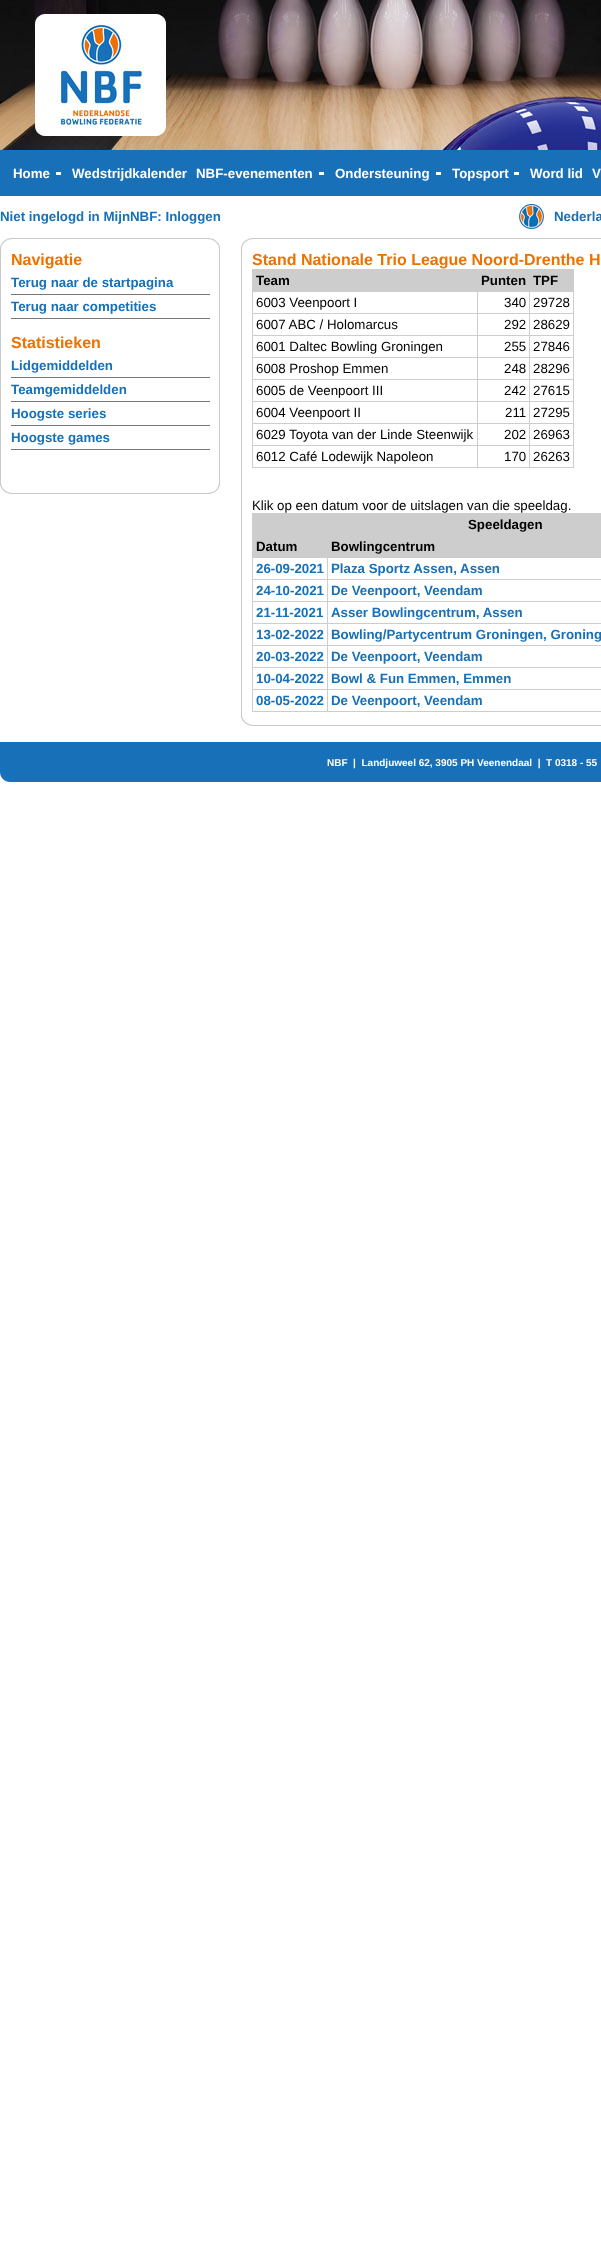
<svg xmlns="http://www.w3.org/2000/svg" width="601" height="2262">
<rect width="100%" height="100%" fill="#fff"/>
<rect y="150" width="601" height="46" fill="#1770b8"/>
<image x="0" y="0" width="601" height="150" href="media/1.png"/>
<text x="13" y="178" style="font-family:Liberation Sans;font-size:13.3px;font-weight:bold;fill:#fff">Home</text>
<rect x="56" y="172" width="5" height="3" fill="#fff"/>
<text x="72" y="178" style="font-family:Liberation Sans;font-size:13.3px;font-weight:bold;fill:#fff">Wedstrijdkalender</text>
<text x="196" y="178" style="font-family:Liberation Sans;font-size:13.3px;font-weight:bold;fill:#fff">NBF-evenementen</text>
<rect x="319" y="172" width="5" height="3" fill="#fff"/>
<text x="335" y="178" style="font-family:Liberation Sans;font-size:13.3px;font-weight:bold;fill:#fff">Ondersteuning</text>
<rect x="436" y="172" width="5" height="3" fill="#fff"/>
<text x="452" y="178" style="font-family:Liberation Sans;font-size:13.3px;font-weight:bold;fill:#fff">Topsport</text>
<rect x="514" y="172" width="5" height="3" fill="#fff"/>
<text x="530" y="178" style="font-family:Liberation Sans;font-size:13.3px;font-weight:bold;fill:#fff">Word lid</text>
<text x="592" y="178" style="font-family:Liberation Sans;font-size:13.3px;font-weight:bold;fill:#fff">V</text>
<text x="0" y="221" style="font-family:Liberation Sans;font-size:13.3px;font-weight:bold;fill:#1770b8">Niet ingelogd in MijnNBF: Inloggen</text>
<image x="519" y="204" width="25" height="25" href="media/2.png"/>
<text x="554" y="221" style="font-family:Liberation Sans;font-size:13.3px;font-weight:bold;fill:#1770b8">Nederla</text>
<image x="0" y="238" width="15" height="13" href="media/3.png"/>
<rect x="15" y="238" width="190" height="1" fill="#cacaca"/>
<image x="205" y="238" width="15" height="13" href="media/4.png"/>
<rect x="219" y="251" width="1" height="229" fill="#cacaca"/>
<rect y="251" width="1" height="229" fill="#cacaca"/>
<text x="11" y="265" style="font-family:Liberation Sans;font-size:16px;font-weight:bold;fill:#ee7100">Navigatie</text>
<rect x="11" y="294" width="199" height="1" fill="#787878"/>
<text x="11" y="287" style="font-family:Liberation Sans;font-size:13.3px;font-weight:bold;fill:#1770b8">Terug naar de startpagina</text>
<rect x="11" y="318" width="199" height="1" fill="#787878"/>
<text x="11" y="311" style="font-family:Liberation Sans;font-size:13.3px;font-weight:bold;fill:#1770b8">Terug naar competities</text>
<text x="11" y="348" style="font-family:Liberation Sans;font-size:16px;font-weight:bold;fill:#ee7100">Statistieken</text>
<rect x="11" y="377" width="199" height="1" fill="#787878"/>
<text x="11" y="370" style="font-family:Liberation Sans;font-size:13.3px;font-weight:bold;fill:#1770b8">Lidgemiddelden</text>
<rect x="11" y="401" width="199" height="1" fill="#787878"/>
<text x="11" y="394" style="font-family:Liberation Sans;font-size:13.3px;font-weight:bold;fill:#1770b8">Teamgemiddelden</text>
<rect x="11" y="425" width="199" height="1" fill="#787878"/>
<text x="11" y="418" style="font-family:Liberation Sans;font-size:13.3px;font-weight:bold;fill:#1770b8">Hoogste series</text>
<rect x="11" y="449" width="199" height="1" fill="#787878"/>
<text x="11" y="442" style="font-family:Liberation Sans;font-size:13.3px;font-weight:bold;fill:#1770b8">Hoogste games</text>
<image x="0" y="480" width="15" height="14" href="media/5.png"/>
<rect x="15" y="493" width="190" height="1" fill="#cacaca"/>
<image x="205" y="480" width="15" height="14" href="media/6.png"/>
<image x="241" y="238" width="15" height="13" href="media/3.png"/>
<rect x="256" y="238" width="345" height="1" fill="#cacaca"/>
<rect x="241" y="251" width="1" height="461" fill="#cacaca"/>
<text x="252" y="265" style="font-family:Liberation Sans;font-size:16px;font-weight:bold;fill:#ee7100">Stand Nationale Trio League Noord-Drenthe H</text>
<rect x="253" y="270" width="224" height="21" fill="#cdcdcd"/>
<rect x="252" y="269" width="322" height="1" fill="#cdcdcd"/>
<rect x="477" y="270" width="52" height="22" fill="#cdcdcd"/>
<rect x="529" y="313" width="45" height="1" fill="#cdcdcd"/>
<rect x="529" y="335" width="45" height="1" fill="#cdcdcd"/>
<rect x="529" y="357" width="45" height="1" fill="#cdcdcd"/>
<rect x="529" y="379" width="45" height="1" fill="#cdcdcd"/>
<rect x="529" y="401" width="45" height="1" fill="#cdcdcd"/>
<rect x="529" y="423" width="45" height="1" fill="#cdcdcd"/>
<rect x="529" y="445" width="45" height="1" fill="#cdcdcd"/>
<rect x="573" y="445" width="1" height="23" fill="#cdcdcd"/>
<rect x="529" y="467" width="45" height="1" fill="#cdcdcd"/>
<rect x="529" y="445" width="1" height="23" fill="#cdcdcd"/>
<rect x="477" y="445" width="53" height="1" fill="#cdcdcd"/>
<rect x="529" y="423" width="1" height="23" fill="#cdcdcd"/>
<rect x="477" y="423" width="53" height="1" fill="#cdcdcd"/>
<rect x="529" y="401" width="1" height="23" fill="#cdcdcd"/>
<rect x="477" y="401" width="53" height="1" fill="#cdcdcd"/>
<rect x="529" y="379" width="1" height="23" fill="#cdcdcd"/>
<rect x="477" y="379" width="53" height="1" fill="#cdcdcd"/>
<rect x="529" y="357" width="1" height="23" fill="#cdcdcd"/>
<rect x="477" y="357" width="53" height="1" fill="#cdcdcd"/>
<rect x="529" y="335" width="1" height="23" fill="#cdcdcd"/>
<rect x="477" y="335" width="53" height="1" fill="#cdcdcd"/>
<rect x="529" y="313" width="1" height="23" fill="#cdcdcd"/>
<rect x="477" y="313" width="53" height="1" fill="#cdcdcd"/>
<rect x="477" y="467" width="53" height="1" fill="#cdcdcd"/>
<rect x="477" y="445" width="1" height="23" fill="#cdcdcd"/>
<rect x="252" y="445" width="226" height="1" fill="#cdcdcd"/>
<rect x="477" y="423" width="1" height="23" fill="#cdcdcd"/>
<rect x="252" y="423" width="226" height="1" fill="#cdcdcd"/>
<rect x="477" y="401" width="1" height="23" fill="#cdcdcd"/>
<rect x="252" y="401" width="226" height="1" fill="#cdcdcd"/>
<rect x="477" y="379" width="1" height="23" fill="#cdcdcd"/>
<rect x="252" y="379" width="226" height="1" fill="#cdcdcd"/>
<rect x="477" y="357" width="1" height="23" fill="#cdcdcd"/>
<rect x="252" y="357" width="226" height="1" fill="#cdcdcd"/>
<rect x="477" y="335" width="1" height="23" fill="#cdcdcd"/>
<rect x="252" y="335" width="226" height="1" fill="#cdcdcd"/>
<rect x="477" y="313" width="1" height="23" fill="#cdcdcd"/>
<rect x="252" y="313" width="226" height="1" fill="#cdcdcd"/>
<rect x="477" y="291" width="1" height="23" fill="#cdcdcd"/>
<rect x="252" y="291" width="226" height="1" fill="#cdcdcd"/>
<rect x="252" y="467" width="226" height="1" fill="#cdcdcd"/>
<rect x="252" y="445" width="1" height="23" fill="#cdcdcd"/>
<rect x="252" y="423" width="1" height="23" fill="#cdcdcd"/>
<rect x="252" y="401" width="1" height="23" fill="#cdcdcd"/>
<rect x="252" y="379" width="1" height="23" fill="#cdcdcd"/>
<rect x="252" y="357" width="1" height="23" fill="#cdcdcd"/>
<rect x="252" y="335" width="1" height="23" fill="#cdcdcd"/>
<rect x="252" y="313" width="1" height="23" fill="#cdcdcd"/>
<rect x="252" y="291" width="1" height="23" fill="#cdcdcd"/>
<rect x="252" y="269" width="1" height="23" fill="#cdcdcd"/>
<text x="256" y="285" style="font-family:Liberation Sans;font-size:13.3px;font-weight:bold;fill:#000">Team</text>
<text x="481" y="285" style="font-family:Liberation Sans;font-size:13.3px;font-weight:bold;fill:#000">Punten</text>
<rect x="529" y="270" width="44" height="21" fill="#cdcdcd"/>
<rect x="529" y="291" width="45" height="1" fill="#cdcdcd"/>
<rect x="573" y="423" width="1" height="23" fill="#cdcdcd"/>
<rect x="573" y="401" width="1" height="23" fill="#cdcdcd"/>
<rect x="573" y="379" width="1" height="23" fill="#cdcdcd"/>
<rect x="573" y="357" width="1" height="23" fill="#cdcdcd"/>
<rect x="573" y="335" width="1" height="23" fill="#cdcdcd"/>
<rect x="573" y="313" width="1" height="23" fill="#cdcdcd"/>
<rect x="573" y="291" width="1" height="23" fill="#cdcdcd"/>
<rect x="573" y="269" width="1" height="23" fill="#cdcdcd"/>
<text x="533" y="285" style="font-family:Liberation Sans;font-size:13.3px;font-weight:bold;fill:#000">TPF</text>
<text x="256" y="307" style="font-family:Liberation Sans;font-size:13.3px;fill:#000">6003 Veenpoort I</text>
<text x="504" y="307" style="font-family:Liberation Sans;font-size:13.3px;fill:#000">340</text>
<rect x="529" y="291" width="1" height="23" fill="#cdcdcd"/>
<text x="533" y="307" style="font-family:Liberation Sans;font-size:13.3px;fill:#000">29728</text>
<text x="256" y="329" style="font-family:Liberation Sans;font-size:13.3px;fill:#000">6007 ABC / Holomarcus</text>
<text x="504" y="329" style="font-family:Liberation Sans;font-size:13.3px;fill:#000">292</text>
<text x="533" y="329" style="font-family:Liberation Sans;font-size:13.3px;fill:#000">28629</text>
<text x="256" y="351" style="font-family:Liberation Sans;font-size:13.3px;fill:#000">6001 Daltec Bowling Groningen</text>
<text x="504" y="351" style="font-family:Liberation Sans;font-size:13.3px;fill:#000">255</text>
<text x="533" y="351" style="font-family:Liberation Sans;font-size:13.3px;fill:#000">27846</text>
<text x="256" y="373" style="font-family:Liberation Sans;font-size:13.3px;fill:#000">6008 Proshop Emmen</text>
<text x="504" y="373" style="font-family:Liberation Sans;font-size:13.3px;fill:#000">248</text>
<text x="533" y="373" style="font-family:Liberation Sans;font-size:13.3px;fill:#000">28296</text>
<text x="256" y="395" style="font-family:Liberation Sans;font-size:13.3px;fill:#000">6005 de Veenpoort III</text>
<text x="504" y="395" style="font-family:Liberation Sans;font-size:13.3px;fill:#000">242</text>
<text x="533" y="395" style="font-family:Liberation Sans;font-size:13.3px;fill:#000">27615</text>
<text x="256" y="417" style="font-family:Liberation Sans;font-size:13.3px;fill:#000">6004 Veenpoort II</text>
<text x="505" y="417" style="font-family:Liberation Sans;font-size:13.3px;fill:#000">211</text>
<text x="533" y="417" style="font-family:Liberation Sans;font-size:13.3px;fill:#000">27295</text>
<text x="256" y="439" style="font-family:Liberation Sans;font-size:13.3px;fill:#000">6029 Toyota van der Linde Steenwijk</text>
<text x="504" y="439" style="font-family:Liberation Sans;font-size:13.3px;fill:#000">202</text>
<text x="533" y="439" style="font-family:Liberation Sans;font-size:13.3px;fill:#000">26963</text>
<text x="256" y="461" style="font-family:Liberation Sans;font-size:13.3px;fill:#000">6012 Café Lodewijk Napoleon</text>
<text x="504" y="461" style="font-family:Liberation Sans;font-size:13.3px;fill:#000">170</text>
<text x="533" y="461" style="font-family:Liberation Sans;font-size:13.3px;fill:#000">26263</text>
<text x="252" y="510" style="font-family:Liberation Sans;font-size:13.3px;fill:#000">Klik op een datum voor de uitslagen van die speeldag.</text>
<rect x="253" y="514" width="348" height="22" fill="#cdcdcd"/>
<rect x="252" y="513" width="349" height="1" fill="#cdcdcd"/>
<rect x="327" y="579" width="274" height="1" fill="#cdcdcd"/>
<rect x="327" y="601" width="274" height="1" fill="#cdcdcd"/>
<rect x="327" y="623" width="274" height="1" fill="#cdcdcd"/>
<rect x="327" y="645" width="274" height="1" fill="#cdcdcd"/>
<rect x="327" y="667" width="274" height="1" fill="#cdcdcd"/>
<rect x="327" y="689" width="274" height="1" fill="#cdcdcd"/>
<rect x="327" y="711" width="274" height="1" fill="#cdcdcd"/>
<rect x="327" y="689" width="1" height="23" fill="#cdcdcd"/>
<rect x="252" y="689" width="76" height="1" fill="#cdcdcd"/>
<rect x="327" y="667" width="1" height="23" fill="#cdcdcd"/>
<rect x="252" y="667" width="76" height="1" fill="#cdcdcd"/>
<rect x="327" y="645" width="1" height="23" fill="#cdcdcd"/>
<rect x="252" y="645" width="76" height="1" fill="#cdcdcd"/>
<rect x="327" y="623" width="1" height="23" fill="#cdcdcd"/>
<rect x="252" y="623" width="76" height="1" fill="#cdcdcd"/>
<rect x="327" y="601" width="1" height="23" fill="#cdcdcd"/>
<rect x="252" y="601" width="76" height="1" fill="#cdcdcd"/>
<rect x="327" y="579" width="1" height="23" fill="#cdcdcd"/>
<rect x="252" y="579" width="76" height="1" fill="#cdcdcd"/>
<rect x="327" y="557" width="1" height="23" fill="#cdcdcd"/>
<rect x="252" y="557" width="76" height="1" fill="#cdcdcd"/>
<rect x="252" y="711" width="76" height="1" fill="#cdcdcd"/>
<rect x="252" y="689" width="1" height="23" fill="#cdcdcd"/>
<rect x="252" y="667" width="1" height="23" fill="#cdcdcd"/>
<rect x="252" y="645" width="1" height="23" fill="#cdcdcd"/>
<rect x="252" y="623" width="1" height="23" fill="#cdcdcd"/>
<rect x="252" y="601" width="1" height="23" fill="#cdcdcd"/>
<rect x="252" y="579" width="1" height="23" fill="#cdcdcd"/>
<rect x="252" y="557" width="1" height="23" fill="#cdcdcd"/>
<rect x="252" y="535" width="1" height="23" fill="#cdcdcd"/>
<rect x="252" y="513" width="1" height="23" fill="#cdcdcd"/>
<text x="468" y="529" style="font-family:Liberation Sans;font-size:13.3px;font-weight:bold;fill:#000">Speeldagen</text>
<rect x="253" y="536" width="75" height="21" fill="#cdcdcd"/>
<text x="256" y="551" style="font-family:Liberation Sans;font-size:13.3px;font-weight:bold;fill:#000">Datum</text>
<rect x="328" y="536" width="273" height="22" fill="#cdcdcd"/>
<text x="331" y="551" style="font-family:Liberation Sans;font-size:13.3px;font-weight:bold;fill:#000">Bowlingcentrum</text>
<text x="256" y="573" style="font-family:Liberation Sans;font-size:13.3px;font-weight:bold;fill:#1770b8">26-09-2021</text>
<text x="331" y="573" style="font-family:Liberation Sans;font-size:13.3px;font-weight:bold;fill:#1770b8">Plaza Sportz Assen, Assen</text>
<text x="256" y="595" style="font-family:Liberation Sans;font-size:13.3px;font-weight:bold;fill:#1770b8">24-10-2021</text>
<text x="331" y="595" style="font-family:Liberation Sans;font-size:13.3px;font-weight:bold;fill:#1770b8">De Veenpoort, Veendam</text>
<text x="256" y="617" style="font-family:Liberation Sans;font-size:13.3px;font-weight:bold;fill:#1770b8">21-11-2021</text>
<text x="331" y="617" style="font-family:Liberation Sans;font-size:13.3px;font-weight:bold;fill:#1770b8">Asser Bowlingcentrum, Assen</text>
<text x="256" y="639" style="font-family:Liberation Sans;font-size:13.3px;font-weight:bold;fill:#1770b8">13-02-2022</text>
<text x="331" y="639" style="font-family:Liberation Sans;font-size:13.3px;font-weight:bold;fill:#1770b8">Bowling/Partycentrum Groningen, Groning</text>
<text x="256" y="661" style="font-family:Liberation Sans;font-size:13.3px;font-weight:bold;fill:#1770b8">20-03-2022</text>
<text x="331" y="661" style="font-family:Liberation Sans;font-size:13.3px;font-weight:bold;fill:#1770b8">De Veenpoort, Veendam</text>
<text x="256" y="683" style="font-family:Liberation Sans;font-size:13.3px;font-weight:bold;fill:#1770b8">10-04-2022</text>
<text x="331" y="683" style="font-family:Liberation Sans;font-size:13.3px;font-weight:bold;fill:#1770b8">Bowl &amp; Fun Emmen, Emmen</text>
<text x="256" y="705" style="font-family:Liberation Sans;font-size:13.3px;font-weight:bold;fill:#1770b8">08-05-2022</text>
<text x="331" y="705" style="font-family:Liberation Sans;font-size:13.3px;font-weight:bold;fill:#1770b8">De Veenpoort, Veendam</text>
<image x="241" y="712" width="15" height="14" href="media/5.png"/>
<rect x="256" y="725" width="345" height="1" fill="#cacaca"/>
<path d="M0 742h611v30c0 5.5-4.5 10-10 10h-591c-5.5 0-10-4.5-10-10z" fill="#1770b8"/>
<text x="327" y="766" style="font-family:Liberation Sans;font-size:10px;font-weight:bold;fill:#fff" xml:space="preserve">NBF  |  Landjuweel 62, 3905 PH Veenendaal  |  T 0318 - 55</text>
</svg>
